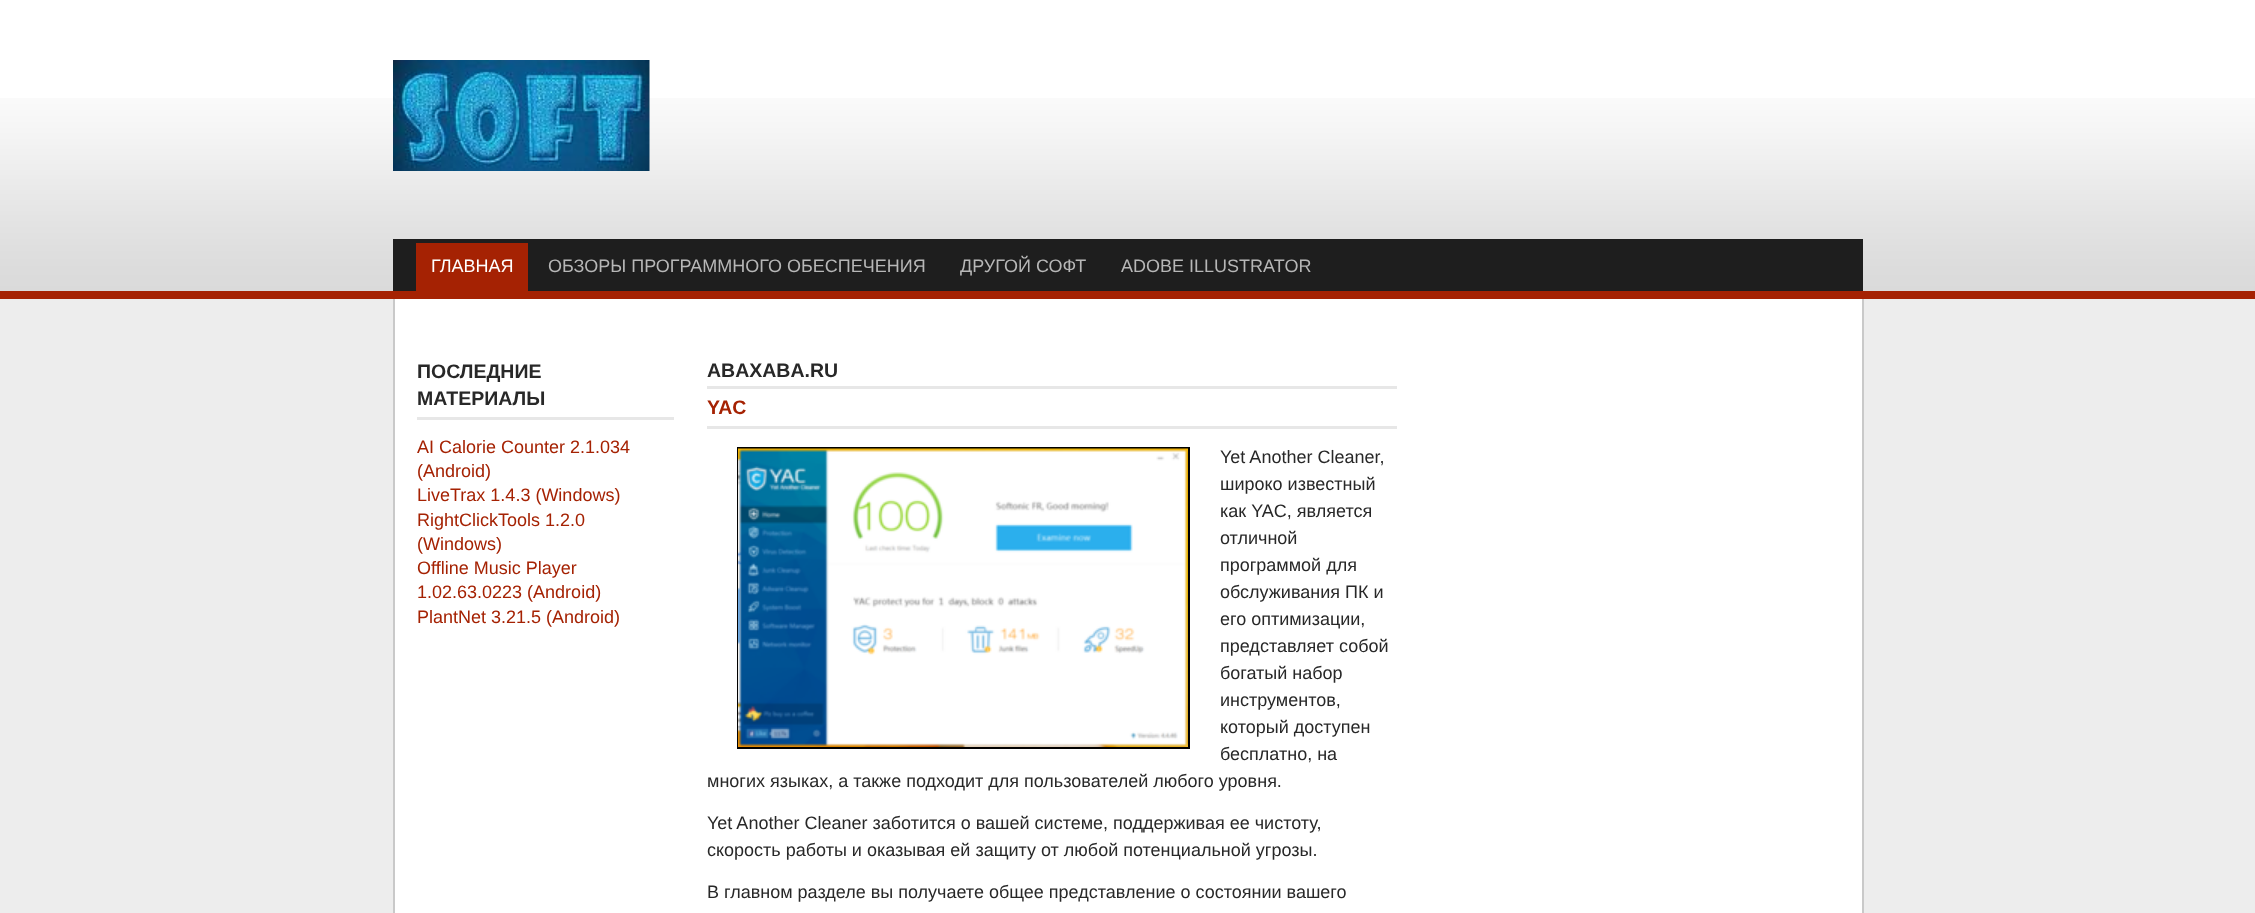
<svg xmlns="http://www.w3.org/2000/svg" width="2255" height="913">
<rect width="100%" height="100%" fill="#ededed"/>
<rect width="2255" height="98" fill="#fff"/>
<image x="0" y="98" width="2255" height="193" href="media/1.png"/>
<rect y="291" width="2255" height="8" fill="#a52203"/>
<image x="393" y="60" width="257" height="111" href="media/2.png"/>
<rect x="393" y="239" width="1470" height="52" fill="#1e1e1e"/>
<rect x="416" y="243" width="112" height="48" fill="#a52203"/>
<text x="431" y="272" style="font-family:Liberation Sans;font-size:18px;fill:#fff">ГЛАВНАЯ</text>
<text x="548" y="272" style="font-family:Liberation Sans;font-size:18px;fill:#b7b7b7">ОБЗОРЫ ПРОГРАММНОГО ОБЕСПЕЧЕНИЯ</text>
<text x="960" y="272" style="font-family:Liberation Sans;font-size:18px;fill:#b7b7b7">ДРУГОЙ СОФТ</text>
<text x="1121" y="272" style="font-family:Liberation Sans;font-size:18px;fill:#b7b7b7">ADOBE ILLUSTRATOR</text>
<rect x="395" y="299" width="1467" height="614" fill="#fff"/>
<rect x="1862" y="299" width="2" height="614" fill="#c9c9c9"/>
<rect x="393" y="299" width="2" height="614" fill="#c9c9c9"/>
<rect x="417" y="417" width="257" height="3" fill="#e7e7e7"/>
<text x="417" y="378" style="font-family:Liberation Sans;font-size:19.5px;font-weight:bold;fill:#282828">ПОСЛЕДНИЕ</text>
<text x="417" y="405" style="font-family:Liberation Sans;font-size:19.5px;font-weight:bold;fill:#282828">МАТЕРИАЛЫ</text>
<text x="417" y="453" style="font-family:Liberation Sans;font-size:18px;fill:#a52203">AI Calorie Counter 2.1.034</text>
<text x="417" y="477" style="font-family:Liberation Sans;font-size:18px;fill:#a52203">(Android)</text>
<text x="417" y="501" style="font-family:Liberation Sans;font-size:18px;fill:#a52203">LiveTrax 1.4.3 (Windows)</text>
<text x="417" y="526" style="font-family:Liberation Sans;font-size:18px;fill:#a52203">RightClickTools 1.2.0</text>
<text x="417" y="550" style="font-family:Liberation Sans;font-size:18px;fill:#a52203">(Windows)</text>
<text x="417" y="574" style="font-family:Liberation Sans;font-size:18px;fill:#a52203">Offline Music Player</text>
<text x="417" y="598" style="font-family:Liberation Sans;font-size:18px;fill:#a52203">1.02.63.0223 (Android)</text>
<text x="417" y="623" style="font-family:Liberation Sans;font-size:18px;fill:#a52203">PlantNet 3.21.5 (Android)</text>
<rect x="707" y="386" width="690" height="3" fill="#e7e7e7"/>
<text x="707" y="377" style="font-family:Liberation Sans;font-size:19.5px;font-weight:bold;fill:#282828">ABAXABA.RU</text>
<rect x="707" y="426" width="690" height="3" fill="#e7e7e7"/>
<text x="707" y="414" style="font-family:Liberation Sans;font-size:19.5px;font-weight:bold;fill:#a52203">YAC</text>
<rect x="738" y="448" width="451" height="300" fill="none" stroke="#000" stroke-width="2"/>
<image x="738" y="448" width="450" height="299" href="media/3.png"/>
<text x="1220" y="463" style="font-family:Liberation Sans;font-size:18px;fill:#282828">Yet Another Cleaner,</text>
<text x="1220" y="490" style="font-family:Liberation Sans;font-size:18px;fill:#282828">широко известный</text>
<text x="1220" y="517" style="font-family:Liberation Sans;font-size:18px;fill:#282828">как YAC, является</text>
<text x="1220" y="544" style="font-family:Liberation Sans;font-size:18px;fill:#282828">отличной</text>
<text x="1220" y="571" style="font-family:Liberation Sans;font-size:18px;fill:#282828">программой для</text>
<text x="1220" y="598" style="font-family:Liberation Sans;font-size:18px;fill:#282828">обслуживания ПК и</text>
<text x="1220" y="625" style="font-family:Liberation Sans;font-size:18px;fill:#282828">его оптимизации,</text>
<text x="1220" y="652" style="font-family:Liberation Sans;font-size:18px;fill:#282828">представляет собой</text>
<text x="1220" y="679" style="font-family:Liberation Sans;font-size:18px;fill:#282828">богатый набор</text>
<text x="1220" y="706" style="font-family:Liberation Sans;font-size:18px;fill:#282828">инструментов,</text>
<text x="1220" y="733" style="font-family:Liberation Sans;font-size:18px;fill:#282828">который доступен</text>
<text x="1220" y="760" style="font-family:Liberation Sans;font-size:18px;fill:#282828">бесплатно, на</text>
<text x="707" y="787" style="font-family:Liberation Sans;font-size:18px;fill:#282828">многих языках, а также подходит для пользователей любого уровня.</text>
<text x="707" y="829" style="font-family:Liberation Sans;font-size:18px;fill:#282828">Yet Another Cleaner заботится о вашей системе, поддерживая ее чистоту,</text>
<text x="707" y="856" style="font-family:Liberation Sans;font-size:18px;fill:#282828">скорость работы и оказывая ей защиту от любой потенциальной угрозы.</text>
<text x="707" y="898" style="font-family:Liberation Sans;font-size:18px;fill:#282828">В главном разделе вы получаете общее представление о состоянии вашего</text>
</svg>
